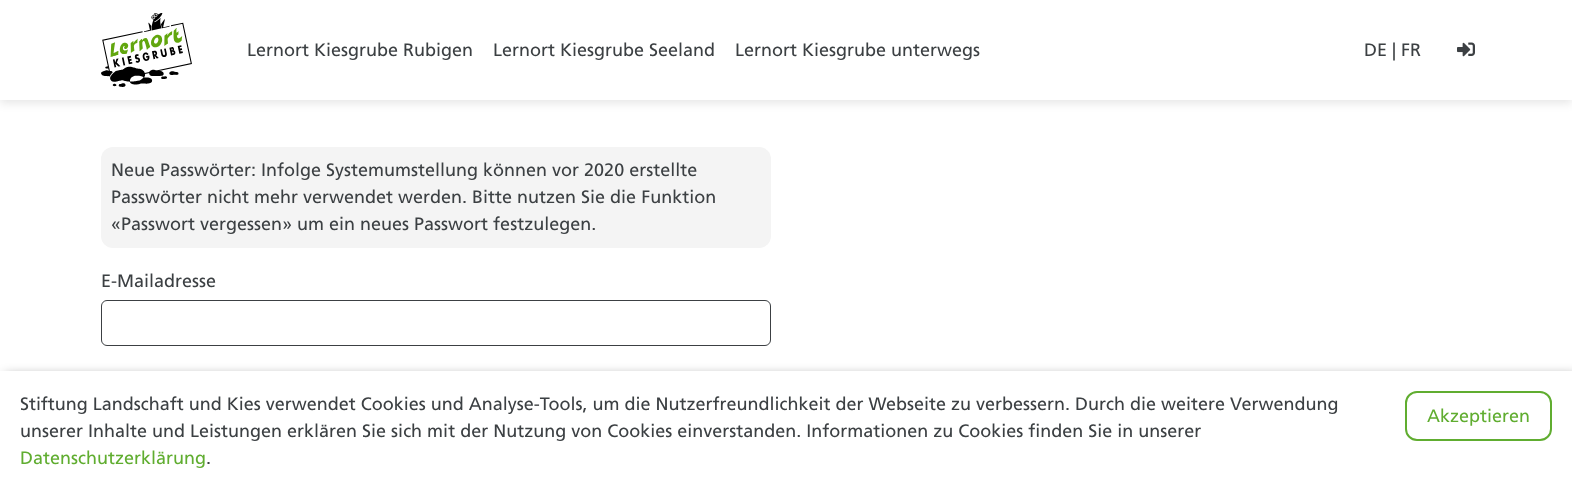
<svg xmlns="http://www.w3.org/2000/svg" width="1572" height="492">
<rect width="100%" height="100%" fill="#fff"/>
<rect y="3" width="1572" height="100" fill="#0000001a" filter="blur(5px)"/>
<rect width="1572" height="100" fill="#fff"/>
<image x="101" y="13" width="91" height="74" href="media/1.png"/>
<text x="247" y="56" style="font-family:Frutiger;font-size:18px;fill:#3c4043">Lernort Kiesgrube Rubigen</text>
<text x="493" y="56" style="font-family:Frutiger;font-size:18px;fill:#3c4043">Lernort Kiesgrube Seeland</text>
<text x="735" y="56" style="font-family:Frutiger;font-size:18px;fill:#3c4043">Lernort Kiesgrube unterwegs</text>
<text x="1364" y="56" style="font-family:Frutiger;font-size:18px;fill:#3c4043">DE | FR</text>
<image x="1457" y="42" width="18" height="15" href="media/2.png"/>
<rect x="101" y="147" width="670" height="101" rx="12" fill="#f4f4f4"/>
<text x="111" y="176" style="font-family:Frutiger;font-size:18px;fill:#3c4043">Neue Passwörter: Infolge Systemumstellung können vor 2020 erstellte</text>
<text x="111" y="203" style="font-family:Frutiger;font-size:18px;fill:#3c4043">Passwörter nicht mehr verwendet werden. Bitte nutzen Sie die Funktion</text>
<text x="111" y="230" style="font-family:Frutiger;font-size:18px;fill:#3c4043">«Passwort vergessen» um ein neues Passwort festzulegen.</text>
<text x="101" y="287" style="font-family:Frutiger;font-size:18px;fill:#3c4043">E-Mailadresse</text>
<rect x="101.5" y="300.5" width="669" height="45" rx="5.5" fill="none" stroke="#3c4043"/>
<rect x="5" y="376" width="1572" height="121" fill="#00000080" filter="blur(6px)"/>
<rect y="371" width="1572" height="121" fill="#fff"/>
<text x="20" y="410" style="font-family:Frutiger;font-size:18px;fill:#3c4043">Stiftung Landschaft und Kies verwendet Cookies und Analyse-Tools, um die Nutzerfreundlichkeit der Webseite zu verbessern. Durch die weitere Verwendung</text>
<text x="20" y="437" style="font-family:Frutiger;font-size:18px;fill:#3c4043">unserer Inhalte und Leistungen erklären Sie sich mit der Nutzung von Cookies einverstanden. Informationen zu Cookies finden Sie in unserer</text>
<text x="20" y="464" style="font-family:Frutiger;font-size:18px;fill:#60ad30">Datenschutzerklärung</text>
<text x="206" y="464" style="font-family:Frutiger;font-size:18px;fill:#3c4043">.</text>
<rect x="1406" y="392" width="145" height="48" rx="11" fill="none" stroke="#60ad30" stroke-width="2"/>
<text x="1427" y="422" style="font-family:Frutiger;font-size:18px;fill:#60ad30">Akzeptieren</text>
</svg>
